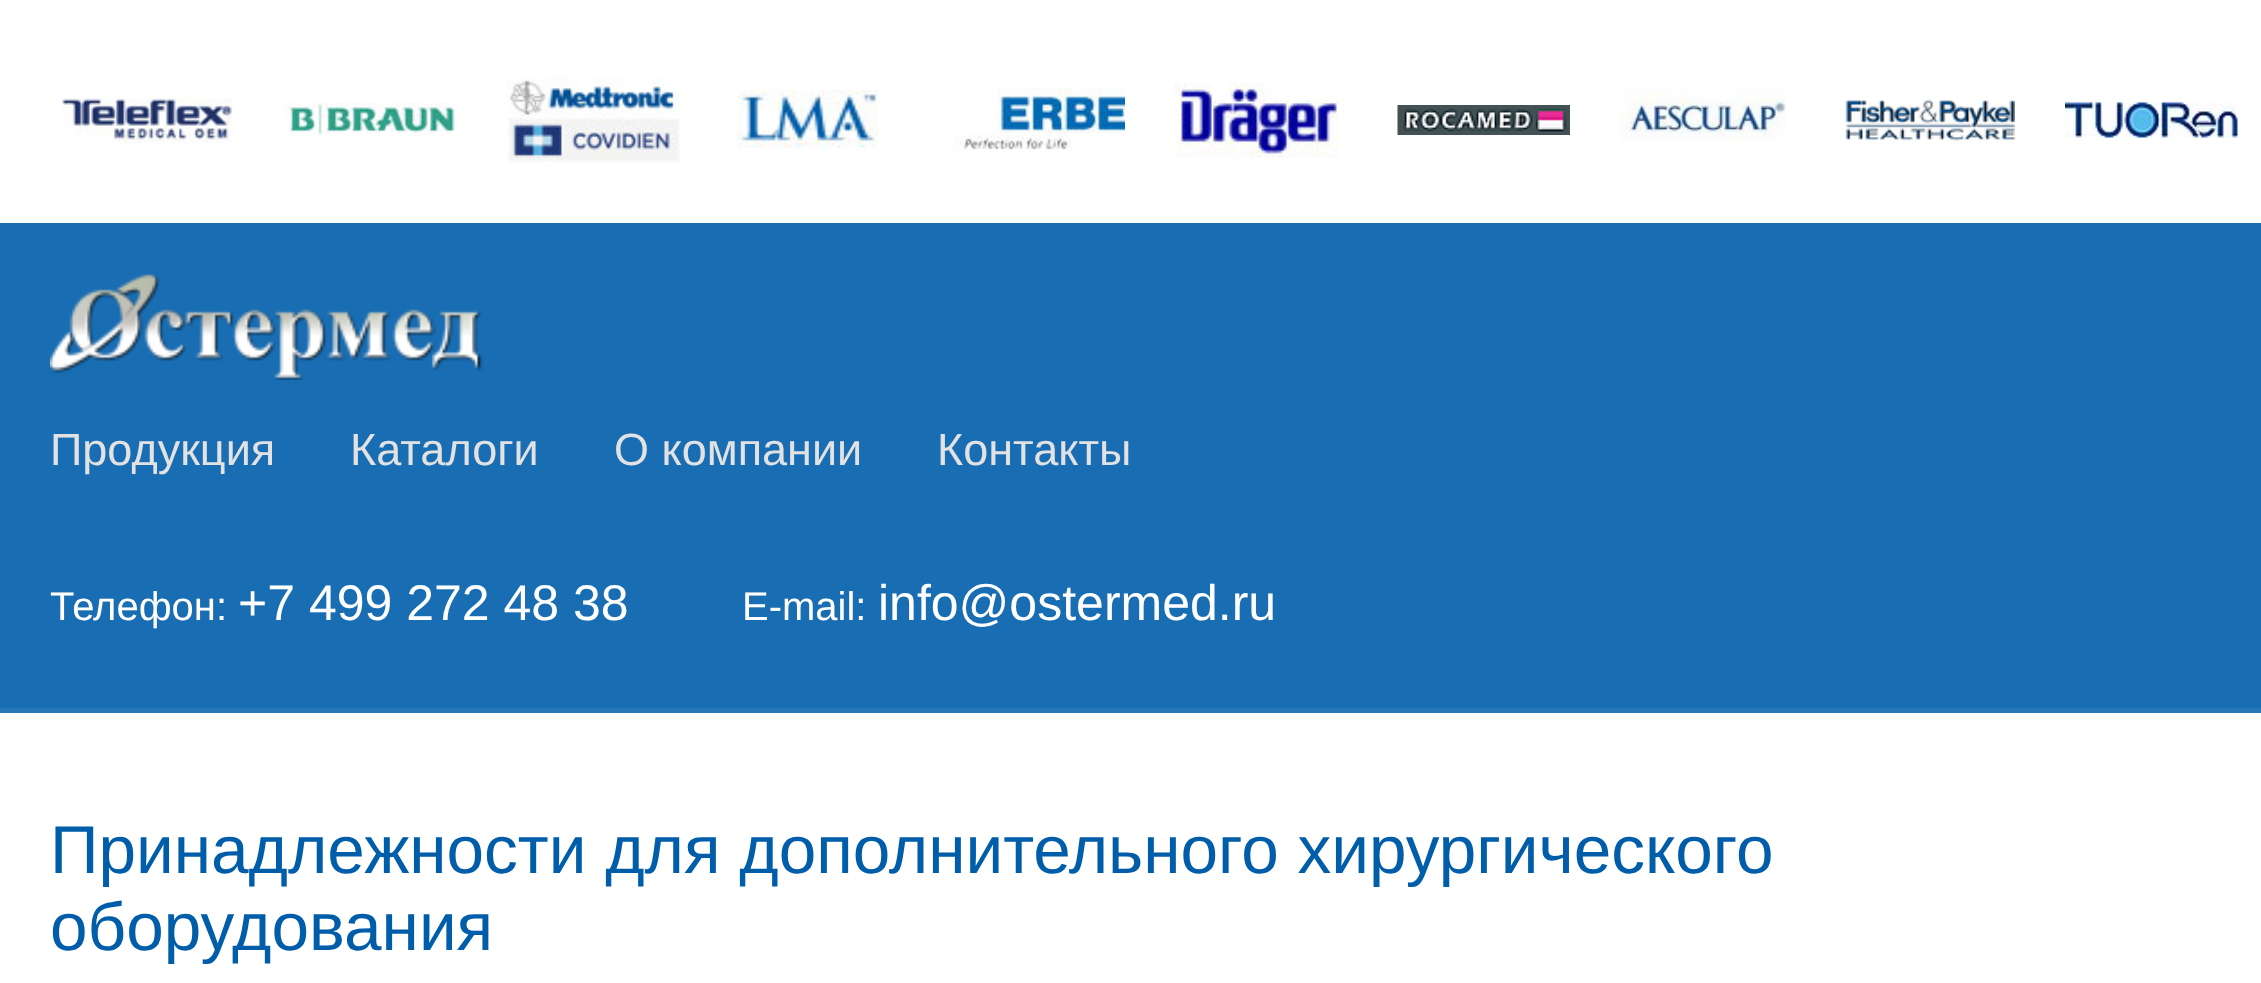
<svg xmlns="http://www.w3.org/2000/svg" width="2261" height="983">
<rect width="100%" height="100%" fill="#fff"/>
<image x="62" y="97" width="173" height="46" href="media/1.png"/>
<image x="285" y="102" width="173" height="35" href="media/2.png"/>
<image x="507" y="77" width="173" height="86" href="media/3.png"/>
<image x="737" y="90" width="141" height="58" href="media/4.png"/>
<image x="955" y="87" width="170" height="63" href="media/5.png"/>
<image x="1175" y="82" width="164" height="76" href="media/6.png"/>
<image x="1397" y="105" width="173" height="30" href="media/7.png"/>
<image x="1620" y="87" width="166" height="55" href="media/8.png"/>
<image x="1845" y="99" width="170" height="42" href="media/9.png"/>
<image x="2065" y="102" width="173" height="36" href="media/10.png"/>
<rect y="223" width="2261" height="485" fill="#196db2"/>
<rect y="708" width="2261" height="5" fill="#2877b7"/>
<image x="50" y="274" width="433" height="106" href="media/11.png"/>
<text x="50" y="465" style="font-family:Liberation Sans;font-size:45px;fill:#e2e2e2">Продукция</text>
<text x="350" y="465" style="font-family:Liberation Sans;font-size:45px;fill:#e2e2e2">Каталоги</text>
<text x="614" y="465" style="font-family:Liberation Sans;font-size:45px;fill:#e2e2e2">О компании</text>
<text x="937" y="465" style="font-family:Liberation Sans;font-size:45px;fill:#e2e2e2">Контакты</text>
<text x="50" y="620" style="font-family:Liberation Sans;font-size:40px;fill:#fff">Телефон:</text>
<text x="238" y="620" style="font-family:Liberation Sans;font-size:50px;fill:#fff">+7 499 272 48 38</text>
<text x="742" y="620" style="font-family:Liberation Sans;font-size:40px;fill:#fff">E-mail:</text>
<text x="878" y="620" style="font-family:Liberation Sans;font-size:50px;fill:#fff">info@ostermed.ru</text>
<text x="50" y="873" style="font-family:Liberation Sans;font-size:67.5px;fill:#005daa">Принадлежности для дополнительного хирургического</text>
<text x="50" y="950" style="font-family:Liberation Sans;font-size:67.5px;fill:#005daa">оборудования</text>
</svg>
